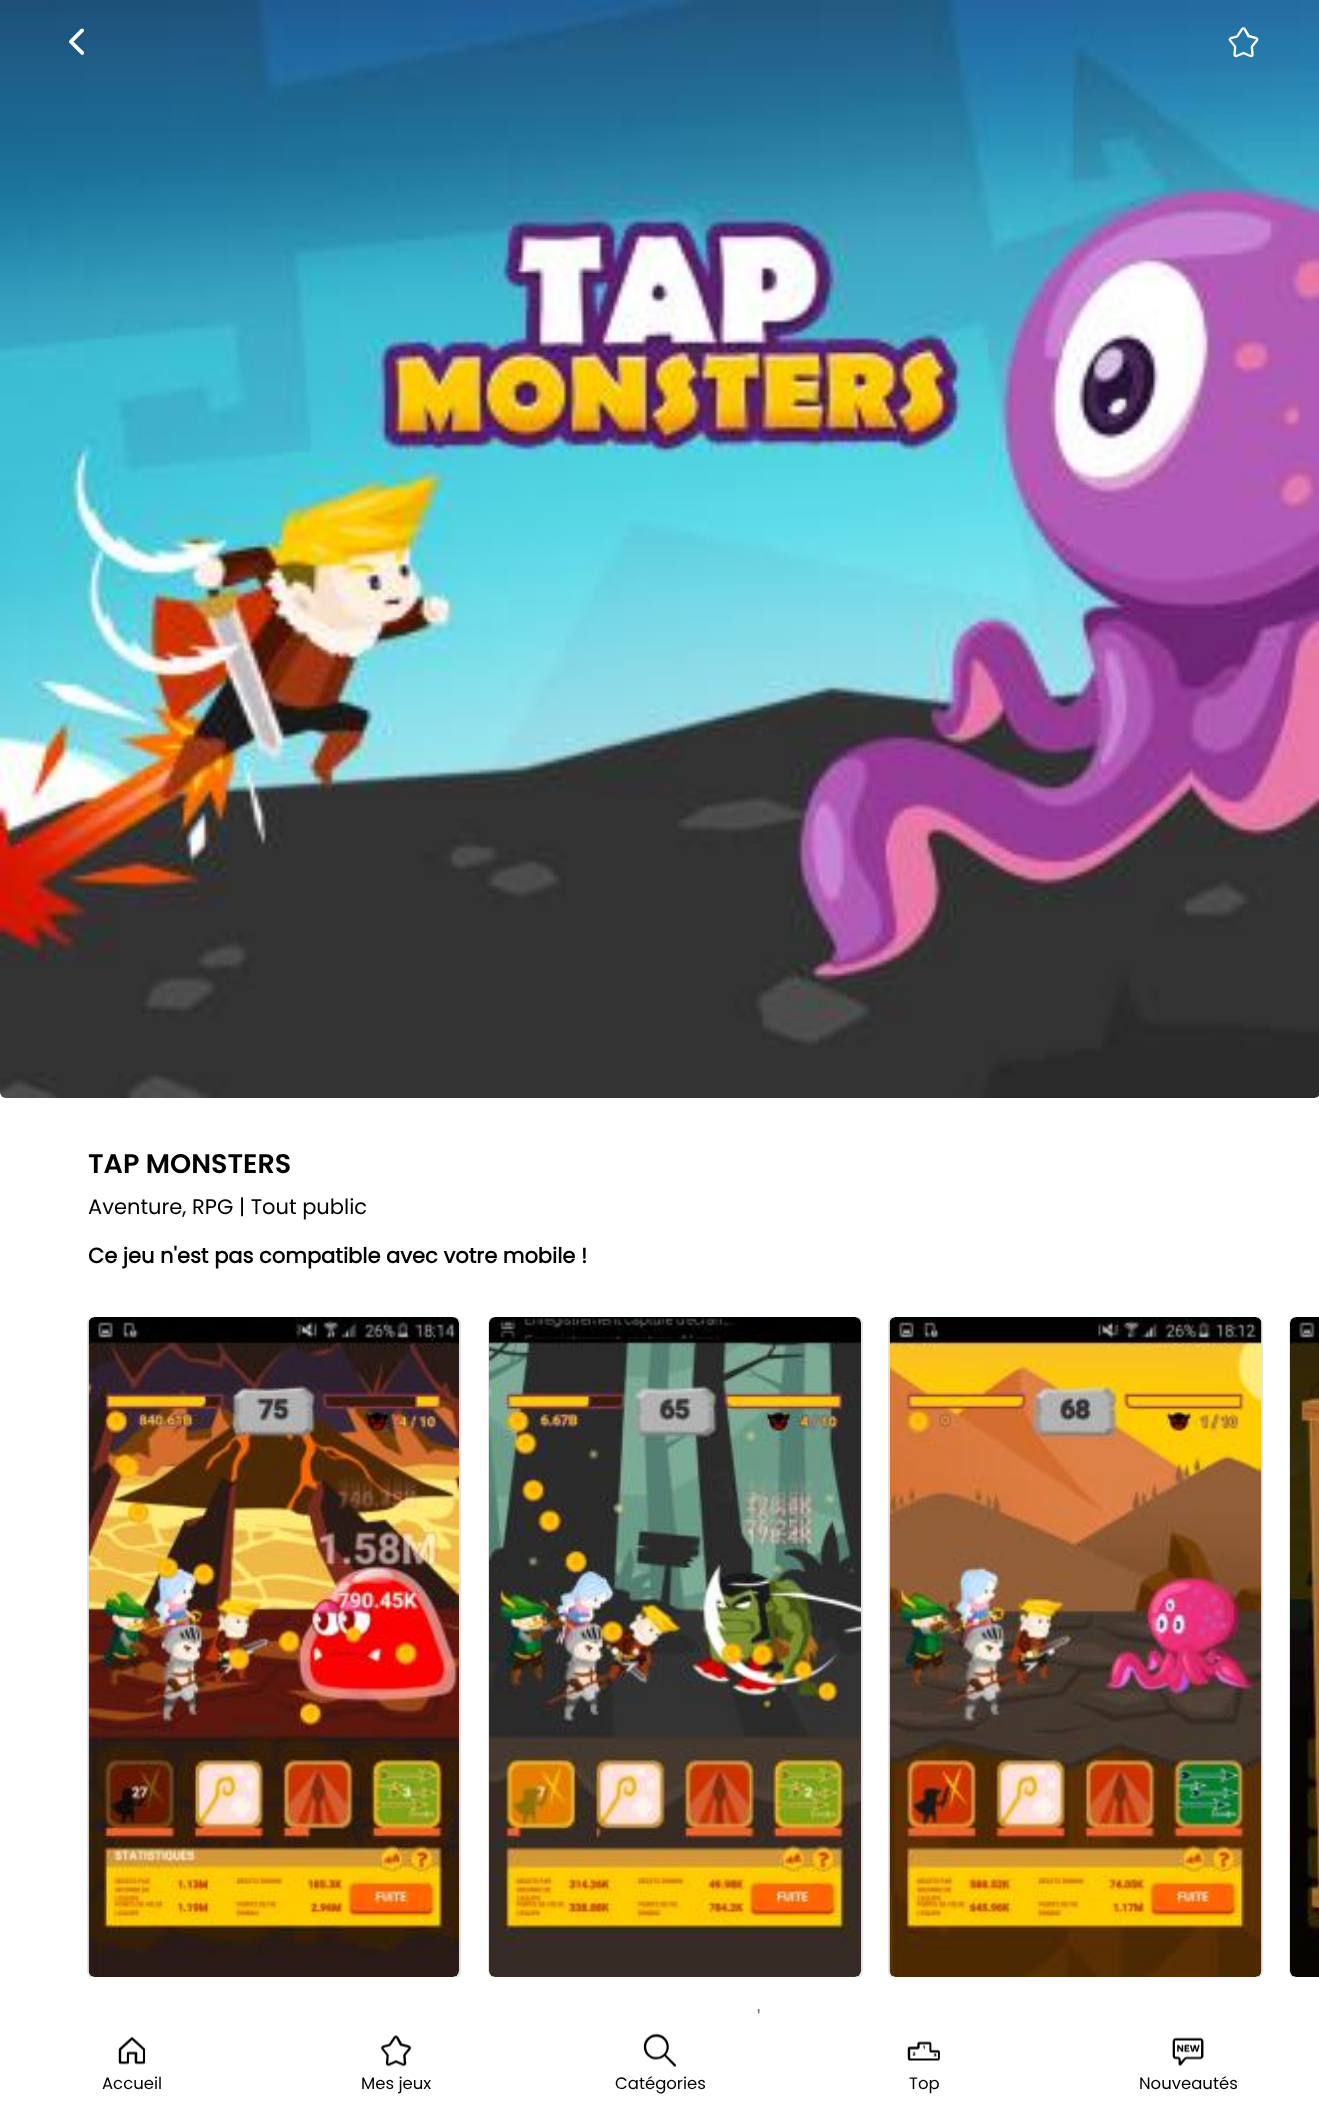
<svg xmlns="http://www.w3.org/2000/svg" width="1319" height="2105">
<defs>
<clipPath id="clip1"><rect y="1317" width="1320" height="660"/></clipPath>
</defs>
<rect width="100%" height="100%" fill="#fff"/>
<image x="0" y="0" width="1319" height="1098" href="media/1.png"/>
<image x="69" y="28" width="16" height="27" href="media/2.png"/>
<image x="1228" y="27" width="31" height="31" href="media/3.png"/>
<text x="88" y="1173" style="font-family:Poppins;font-size:27px;font-weight:600;fill:#000">TAP MONSTERS</text>
<text x="88" y="1214" style="font-family:Poppins;font-size:21px;fill:#000">Aventure, RPG | Tout public</text>
<text x="88" y="1263" style="font-family:Poppins;font-size:21px;font-weight:bold;fill:#000">Ce jeu n'est pas compatible avec votre mobile !</text>
<g clip-path="url(#clip1)">
<rect x="88" y="1317" width="372" height="661" rx="7" fill="none" stroke="#e4e4e4" stroke-width="2"/>
</g>
<image x="88" y="1317" width="371" height="660" href="media/4.png"/>
<g clip-path="url(#clip1)">
<rect x="489" y="1317" width="373" height="661" rx="7" fill="none" stroke="#e4e4e4" stroke-width="2"/>
</g>
<image x="489" y="1317" width="372" height="660" href="media/5.png"/>
<g clip-path="url(#clip1)">
<rect x="889" y="1317" width="373" height="661" rx="7" fill="none" stroke="#e4e4e4" stroke-width="2"/>
</g>
<image x="889" y="1317" width="373" height="660" href="media/6.png"/>
<g clip-path="url(#clip1)">
<rect x="1290" y="1317" width="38" height="661" rx="7" fill="none" stroke="#e4e4e4" stroke-width="2"/>
</g>
<image x="1290" y="1317" width="29" height="660" href="media/7.png"/>
<text x="757" y="2026" style="font-family:Poppins;font-size:21px;fill:#000">'</text>
<rect x="-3" y="2012" width="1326" height="90" fill="#fff" filter="blur(7.5px)"/>
<image x="118" y="2036" width="28" height="29" href="media/8.png"/>
<text x="102" y="2089" style="font-family:Poppins;font-size:16.5px;fill:#000">Accueil</text>
<image x="381" y="2035" width="30" height="32" href="media/9.png"/>
<text x="361" y="2089" style="font-family:Poppins;font-size:16.5px;fill:#000">Mes jeux</text>
<image x="643" y="2033" width="33" height="34" href="media/10.png"/>
<text x="615" y="2089" style="font-family:Poppins;font-size:16.5px;fill:#000">Catégories</text>
<image x="907" y="2041" width="33" height="20" href="media/11.png"/>
<text x="909" y="2089" style="font-family:Poppins;font-size:16.5px;fill:#000">Top</text>
<image x="1172" y="2037" width="32" height="29" href="media/12.png"/>
<text x="1139" y="2089" style="font-family:Poppins;font-size:16.5px;fill:#000">Nouveautés</text>
</svg>
